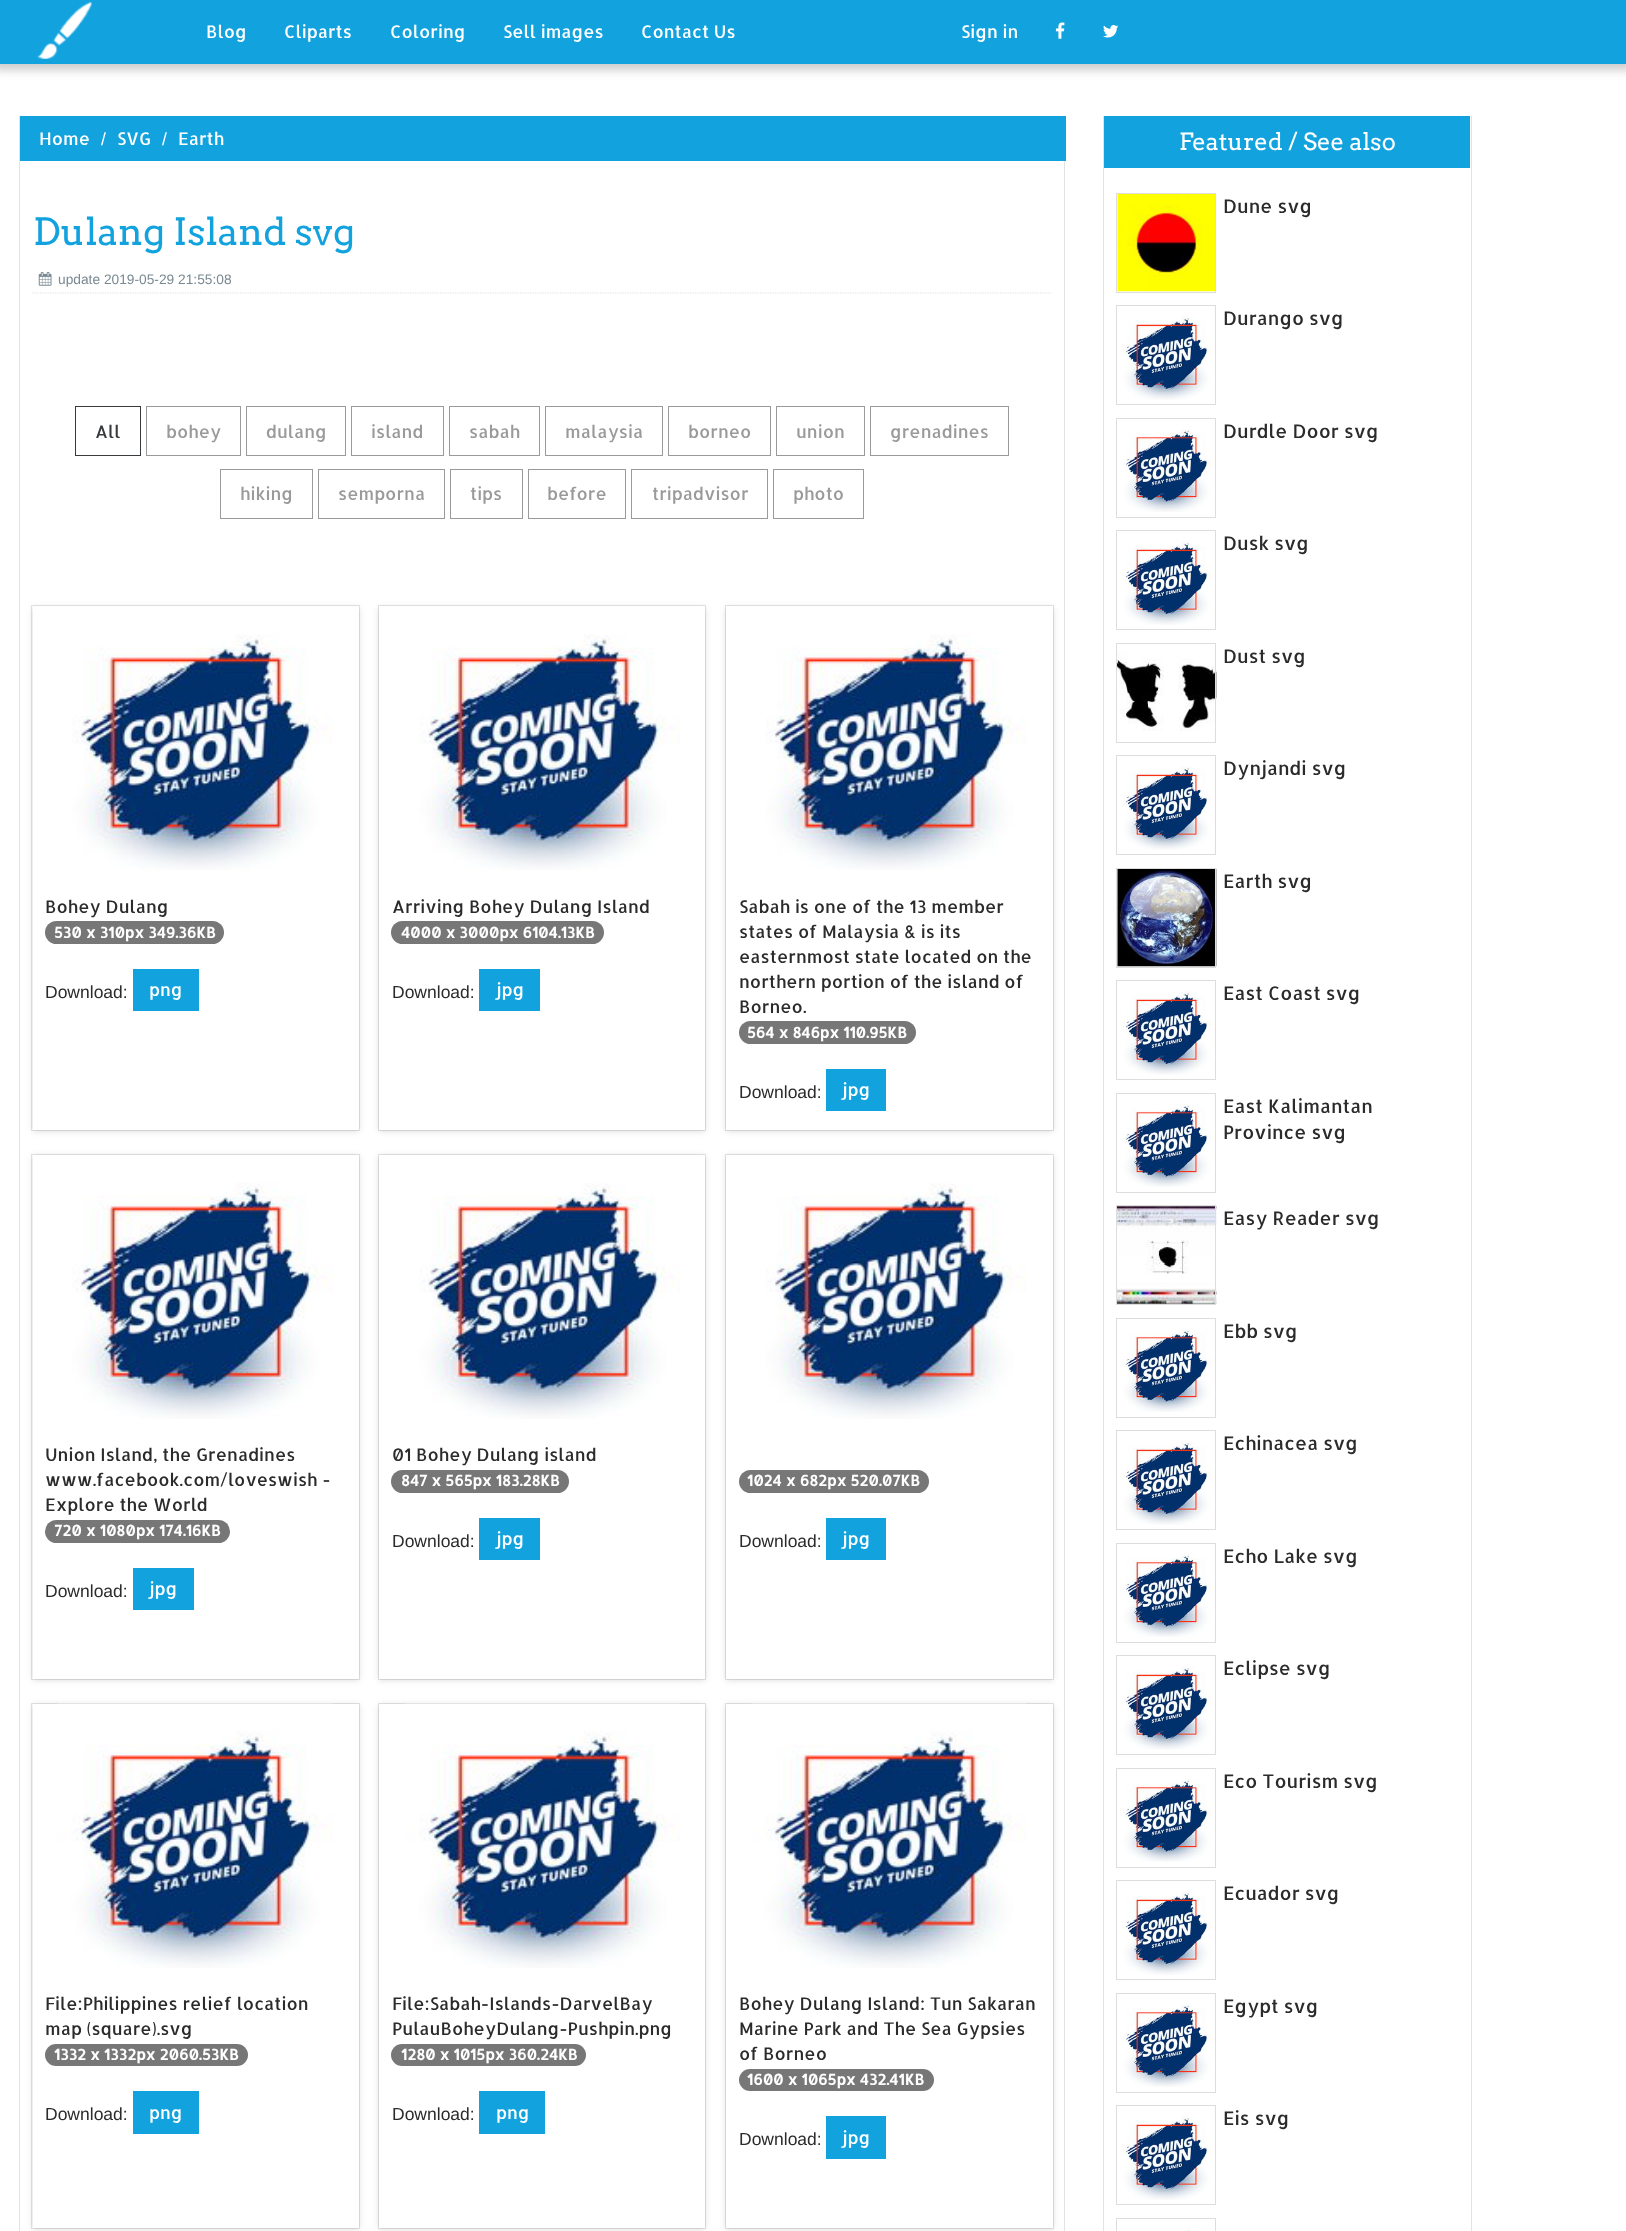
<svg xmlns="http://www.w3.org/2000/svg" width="1626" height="2231">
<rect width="100%" height="100%" fill="#fff"/>
<rect x="-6" y="-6" width="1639" height="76" fill="#00000033" filter="blur(5px)"/>
<rect width="1626" height="64" fill="#12a3df"/>
<image x="37" y="2" width="56" height="57" href="media/1.png"/>
<text x="206" y="38" style="font-family:Allerta;font-size:17.5px;fill:#fff">Blog</text>
<text x="284" y="38" style="font-family:Allerta;font-size:17.5px;fill:#fff">Cliparts</text>
<text x="390" y="38" style="font-family:Allerta;font-size:17.5px;fill:#fff">Coloring</text>
<text x="503" y="38" style="font-family:Allerta;font-size:17.5px;fill:#fff">Sell images</text>
<text x="641" y="38" style="font-family:Allerta;font-size:17.5px;fill:#fff">Contact Us</text>
<text x="961" y="38" style="font-family:Allerta;font-size:17.5px;fill:#fff">Sign in</text>
<image x="1055" y="22" width="10" height="17" href="media/2.png"/>
<image x="1103" y="25" width="16" height="13" href="media/3.png"/>
<rect x="1064" y="161" width="1" height="2070" fill="#e3e3e3"/>
<rect x="19" y="116" width="1" height="2115" fill="#e3e3e3"/>
<rect x="20" y="116" width="1046" height="45" fill="#12a3df"/>
<text x="39" y="145" style="font-family:Allerta;font-size:17.5px;fill:#fff">Home</text>
<text x="101" y="145" style="font-family:Liberation Sans;font-size:17.5px;fill:#fff">/</text>
<text x="117" y="145" style="font-family:Allerta;font-size:17.5px;fill:#fff">SVG</text>
<text x="162" y="145" style="font-family:Liberation Sans;font-size:17.5px;fill:#fff">/</text>
<text x="178" y="145" style="font-family:Allerta;font-size:17.5px;fill:#fff">Earth</text>
<text x="33" y="245" style="font-family:Arvo;font-size:37.5px;fill:#12a3df">Dulang Island svg</text>
<path d="M32.5 293h1018.5" fill="none" stroke="#dedede" stroke-width="1.2" stroke-dasharray="1.25 1.25"/>
<image x="38" y="271" width="14" height="15" href="media/4.png"/>
<text x="58" y="284" style="font-family:Liberation Sans;font-size:13.75px;fill:#798992">update 2019-05-29 21:55:08</text>
<rect x="75.5" y="406.5" width="65" height="49" fill="none" stroke="#373b3d"/>
<text x="95" y="438" style="font-family:Allerta;font-size:17.5px;fill:#373b3d">All</text>
<rect x="146.5" y="406.5" width="94" height="49" fill="none" stroke="#9a9a9a"/>
<text x="166" y="438" style="font-family:Allerta;font-size:17.5px;fill:#9a9a9a">bohey</text>
<rect x="246.5" y="406.5" width="99" height="49" fill="none" stroke="#9a9a9a"/>
<text x="266" y="438" style="font-family:Allerta;font-size:17.5px;fill:#9a9a9a">dulang</text>
<rect x="351.5" y="406.5" width="92" height="49" fill="none" stroke="#9a9a9a"/>
<text x="371" y="438" style="font-family:Allerta;font-size:17.5px;fill:#9a9a9a">island</text>
<rect x="449.5" y="406.5" width="90" height="49" fill="none" stroke="#9a9a9a"/>
<text x="469" y="438" style="font-family:Allerta;font-size:17.5px;fill:#9a9a9a">sabah</text>
<rect x="545.5" y="406.5" width="117" height="49" fill="none" stroke="#9a9a9a"/>
<text x="565" y="438" style="font-family:Allerta;font-size:17.5px;fill:#9a9a9a">malaysia</text>
<rect x="668.5" y="406.5" width="102" height="49" fill="none" stroke="#9a9a9a"/>
<text x="688" y="438" style="font-family:Allerta;font-size:17.5px;fill:#9a9a9a">borneo</text>
<rect x="776.5" y="406.5" width="88" height="49" fill="none" stroke="#9a9a9a"/>
<text x="796" y="438" style="font-family:Allerta;font-size:17.5px;fill:#9a9a9a">union</text>
<rect x="870.5" y="406.5" width="138" height="49" fill="none" stroke="#9a9a9a"/>
<text x="890" y="438" style="font-family:Allerta;font-size:17.5px;fill:#9a9a9a">grenadines</text>
<rect x="220.5" y="469.5" width="92" height="49" fill="none" stroke="#9a9a9a"/>
<text x="240" y="500" style="font-family:Allerta;font-size:17.5px;fill:#9a9a9a">hiking</text>
<rect x="318.5" y="469.5" width="126" height="49" fill="none" stroke="#9a9a9a"/>
<text x="338" y="500" style="font-family:Allerta;font-size:17.5px;fill:#9a9a9a">semporna</text>
<rect x="450.5" y="469.5" width="72" height="49" fill="none" stroke="#9a9a9a"/>
<text x="470" y="500" style="font-family:Allerta;font-size:17.5px;fill:#9a9a9a">tips</text>
<rect x="528.5" y="469.5" width="97" height="49" fill="none" stroke="#9a9a9a"/>
<text x="547" y="500" style="font-family:Allerta;font-size:17.5px;fill:#9a9a9a">before</text>
<rect x="631.5" y="469.5" width="136" height="49" fill="none" stroke="#9a9a9a"/>
<text x="652" y="500" style="font-family:Allerta;font-size:17.5px;fill:#9a9a9a">tripadvisor</text>
<rect x="773.5" y="469.5" width="90" height="49" fill="none" stroke="#9a9a9a"/>
<text x="793" y="500" style="font-family:Allerta;font-size:17.5px;fill:#9a9a9a">photo</text>
<rect x="33" y="608" width="326" height="523" fill="#00000026" filter="blur(3px)"/>
<rect x="31.5" y="605.5" width="328" height="525" fill="none" stroke="#0000001a"/>
<rect x="33" y="606" width="326" height="524" fill="#fff"/>
<image x="72" y="634" width="261" height="236" href="media/5.png"/>
<text x="45" y="913" style="font-family:Allerta;font-size:17.5px;fill:#2b2b2b">Bohey Dulang</text>
<rect x="45" y="921" width="179" height="23" rx="11.5" fill="#777"/>
<text x="54" y="938" style="font-family:Allerta;font-size:15px;font-weight:bold;fill:#fff">530 x 310px 349.36KB</text>
<text x="45" y="998" style="font-family:Liberation Sans;font-size:17.5px;fill:#2b2b2b">Download:</text>
<rect x="133" y="969" width="66" height="42" fill="#12a3df"/>
<text x="149" y="996" style="font-family:Allerta;font-size:17.5px;fill:#fff">png</text>
<rect x="379" y="608" width="326" height="523" fill="#00000026" filter="blur(3px)"/>
<rect x="378.5" y="605.5" width="327" height="525" fill="none" stroke="#0000001a"/>
<rect x="379" y="606" width="326" height="524" fill="#fff"/>
<image x="419" y="634" width="261" height="236" href="media/6.png"/>
<text x="392" y="913" style="font-family:Allerta;font-size:17.5px;fill:#2b2b2b">Arriving Bohey Dulang Island</text>
<rect x="391" y="921" width="213" height="23" rx="11.5" fill="#777"/>
<text x="401" y="938" style="font-family:Allerta;font-size:15px;font-weight:bold;fill:#fff">4000 x 3000px 6104.13KB</text>
<text x="392" y="998" style="font-family:Liberation Sans;font-size:17.5px;fill:#2b2b2b">Download:</text>
<rect x="479" y="969" width="61" height="42" fill="#12a3df"/>
<text x="496" y="996" style="font-family:Allerta;font-size:17.5px;fill:#fff">jpg</text>
<rect x="726" y="608" width="327" height="523" fill="#00000026" filter="blur(3px)"/>
<rect x="725.5" y="605.5" width="328" height="525" fill="none" stroke="#0000001a"/>
<rect x="726" y="606" width="327" height="524" fill="#fff"/>
<image x="765" y="634" width="261" height="236" href="media/7.png"/>
<text x="739" y="913" style="font-family:Allerta;font-size:17.5px;fill:#2b2b2b">Sabah is one of the 13 member</text>
<text x="739" y="938" style="font-family:Allerta;font-size:17.5px;fill:#2b2b2b">states of Malaysia &amp; is its</text>
<text x="739" y="963" style="font-family:Allerta;font-size:17.5px;fill:#2b2b2b">easternmost state located on the</text>
<text x="739" y="988" style="font-family:Allerta;font-size:17.5px;fill:#2b2b2b">northern portion of the island of</text>
<text x="739" y="1013" style="font-family:Allerta;font-size:17.5px;fill:#2b2b2b">Borneo.</text>
<rect x="739" y="1021" width="177" height="23" rx="11.5" fill="#777"/>
<text x="747" y="1038" style="font-family:Allerta;font-size:15px;font-weight:bold;fill:#fff">564 x 846px 110.95KB</text>
<text x="739" y="1098" style="font-family:Liberation Sans;font-size:17.5px;fill:#2b2b2b">Download:</text>
<rect x="826" y="1069" width="60" height="42" fill="#12a3df"/>
<text x="842" y="1096" style="font-family:Allerta;font-size:17.5px;fill:#fff">jpg</text>
<rect x="33" y="1156" width="326" height="524" fill="#00000026" filter="blur(3px)"/>
<rect x="31.5" y="1154.5" width="328" height="525" fill="none" stroke="#0000001a"/>
<rect x="33" y="1155" width="326" height="524" fill="#fff"/>
<image x="72" y="1182" width="261" height="237" href="media/8.png"/>
<text x="45" y="1461" style="font-family:Allerta;font-size:17.5px;fill:#2b2b2b">Union Island, the Grenadines</text>
<text x="45" y="1486" style="font-family:Allerta;font-size:17.5px;fill:#2b2b2b">www.facebook.com/loveswish -</text>
<text x="45" y="1511" style="font-family:Allerta;font-size:17.5px;fill:#2b2b2b">Explore the World</text>
<rect x="45" y="1520" width="185" height="23" rx="11.5" fill="#777"/>
<text x="54" y="1536" style="font-family:Allerta;font-size:15px;font-weight:bold;fill:#fff">720 x 1080px 174.16KB</text>
<text x="45" y="1597" style="font-family:Liberation Sans;font-size:17.5px;fill:#2b2b2b">Download:</text>
<rect x="133" y="1568" width="61" height="42" fill="#12a3df"/>
<text x="149" y="1595" style="font-family:Allerta;font-size:17.5px;fill:#fff">jpg</text>
<rect x="379" y="1156" width="326" height="524" fill="#00000026" filter="blur(3px)"/>
<rect x="378.5" y="1154.5" width="327" height="525" fill="none" stroke="#0000001a"/>
<rect x="379" y="1155" width="326" height="524" fill="#fff"/>
<image x="419" y="1183" width="261" height="236" href="media/9.png"/>
<text x="392" y="1461" style="font-family:Allerta;font-size:17.5px;fill:#2b2b2b">01 Bohey Dulang island</text>
<rect x="391" y="1470" width="178" height="23" rx="11.5" fill="#777"/>
<text x="401" y="1486" style="font-family:Allerta;font-size:15px;font-weight:bold;fill:#fff">847 x 565px 183.28KB</text>
<text x="392" y="1547" style="font-family:Liberation Sans;font-size:17.5px;fill:#2b2b2b">Download:</text>
<rect x="479" y="1518" width="61" height="42" fill="#12a3df"/>
<text x="496" y="1545" style="font-family:Allerta;font-size:17.5px;fill:#fff">jpg</text>
<rect x="726" y="1156" width="327" height="524" fill="#00000026" filter="blur(3px)"/>
<rect x="725.5" y="1154.5" width="328" height="525" fill="none" stroke="#0000001a"/>
<rect x="726" y="1155" width="327" height="524" fill="#fff"/>
<image x="765" y="1183" width="261" height="236" href="media/10.png"/>
<rect x="739" y="1470" width="190" height="23" rx="11.5" fill="#777"/>
<text x="747" y="1486" style="font-family:Allerta;font-size:15px;font-weight:bold;fill:#fff">1024 x 682px 520.07KB</text>
<text x="739" y="1547" style="font-family:Liberation Sans;font-size:17.5px;fill:#2b2b2b">Download:</text>
<rect x="826" y="1518" width="60" height="42" fill="#12a3df"/>
<text x="842" y="1545" style="font-family:Allerta;font-size:17.5px;fill:#fff">jpg</text>
<rect x="33" y="1705" width="326" height="524" fill="#00000026" filter="blur(3px)"/>
<rect x="31.5" y="1703.5" width="328" height="525" fill="none" stroke="#0000001a"/>
<rect x="33" y="1704" width="326" height="524" fill="#fff"/>
<image x="57" y="1703" width="276" height="265" href="media/11.png"/>
<text x="45" y="2010" style="font-family:Allerta;font-size:17.5px;fill:#2b2b2b">File:Philippines relief location</text>
<text x="45" y="2035" style="font-family:Allerta;font-size:17.5px;fill:#2b2b2b">map (square).svg</text>
<rect x="45" y="2044" width="203" height="22" rx="11" fill="#777"/>
<text x="54" y="2060" style="font-family:Allerta;font-size:15px;font-weight:bold;fill:#fff">1332 x 1332px 2060.53KB</text>
<text x="45" y="2120" style="font-family:Liberation Sans;font-size:17.5px;fill:#2b2b2b">Download:</text>
<rect x="133" y="2091" width="66" height="43" fill="#12a3df"/>
<text x="149" y="2119" style="font-family:Allerta;font-size:17.5px;fill:#fff">png</text>
<rect x="379" y="1705" width="326" height="524" fill="#00000026" filter="blur(3px)"/>
<rect x="378.5" y="1703.5" width="327" height="525" fill="none" stroke="#0000001a"/>
<rect x="379" y="1704" width="326" height="524" fill="#fff"/>
<image x="405" y="1703" width="275" height="265" href="media/12.png"/>
<text x="392" y="2010" style="font-family:Allerta;font-size:17.5px;fill:#2b2b2b">File:Sabah-Islands-DarvelBay</text>
<text x="392" y="2035" style="font-family:Allerta;font-size:17.5px;fill:#2b2b2b">PulauBoheyDulang-Pushpin.png</text>
<rect x="391" y="2044" width="195" height="22" rx="11" fill="#777"/>
<text x="401" y="2060" style="font-family:Allerta;font-size:15px;font-weight:bold;fill:#fff">1280 x 1015px 360.24KB</text>
<text x="392" y="2120" style="font-family:Liberation Sans;font-size:17.5px;fill:#2b2b2b">Download:</text>
<rect x="479" y="2091" width="66" height="43" fill="#12a3df"/>
<text x="496" y="2119" style="font-family:Allerta;font-size:17.5px;fill:#fff">png</text>
<rect x="726" y="1705" width="327" height="524" fill="#00000026" filter="blur(3px)"/>
<rect x="725.5" y="1703.5" width="328" height="525" fill="none" stroke="#0000001a"/>
<rect x="726" y="1704" width="327" height="524" fill="#fff"/>
<image x="751" y="1703" width="275" height="265" href="media/13.png"/>
<text x="739" y="2010" style="font-family:Allerta;font-size:17.5px;fill:#2b2b2b">Bohey Dulang Island: Tun Sakaran</text>
<text x="739" y="2035" style="font-family:Allerta;font-size:17.5px;fill:#2b2b2b">Marine Park and The Sea Gypsies</text>
<text x="739" y="2060" style="font-family:Allerta;font-size:17.5px;fill:#2b2b2b">of Borneo</text>
<rect x="739" y="2069" width="195" height="22" rx="11" fill="#777"/>
<text x="747" y="2085" style="font-family:Allerta;font-size:15px;font-weight:bold;fill:#fff">1600 x 1065px 432.41KB</text>
<text x="739" y="2145" style="font-family:Liberation Sans;font-size:17.5px;fill:#2b2b2b">Download:</text>
<rect x="826" y="2116" width="60" height="43" fill="#12a3df"/>
<text x="842" y="2144" style="font-family:Allerta;font-size:17.5px;fill:#fff">jpg</text>
<rect x="1471" y="116" width="1" height="2115" fill="#e3e3e3"/>
<rect x="1103" y="116" width="1" height="2115" fill="#e3e3e3"/>
<rect x="1104" y="116" width="366" height="52" fill="#12a3df"/>
<text x="1179" y="150" style="font-family:Arvo;font-size:23.75px;fill:#fff">Featured / See also</text>
<image x="1117" y="194" width="98" height="98" href="media/14.png"/>
<rect x="1116.5" y="193.5" width="99" height="99" fill="none" stroke="#ddd"/>
<text x="1223" y="213" style="font-family:Allerta;font-size:18.75px;fill:#2b2b2b">Dune svg</text>
<image x="1122" y="316" width="93" height="84" href="media/15.png"/>
<rect x="1116.5" y="305.5" width="99" height="99" fill="none" stroke="#ddd"/>
<text x="1223" y="325" style="font-family:Allerta;font-size:18.75px;fill:#2b2b2b">Durango svg</text>
<image x="1122" y="429" width="93" height="83" href="media/16.png"/>
<rect x="1116.5" y="418.5" width="99" height="99" fill="none" stroke="#ddd"/>
<text x="1223" y="438" style="font-family:Allerta;font-size:18.75px;fill:#2b2b2b">Durdle Door svg</text>
<image x="1122" y="541" width="93" height="84" href="media/15.png"/>
<rect x="1116.5" y="530.5" width="99" height="99" fill="none" stroke="#ddd"/>
<text x="1223" y="550" style="font-family:Allerta;font-size:18.75px;fill:#2b2b2b">Dusk svg</text>
<image x="1117" y="651" width="100" height="80" href="media/17.png"/>
<rect x="1116.5" y="643.5" width="99" height="99" fill="none" stroke="#ddd"/>
<text x="1223" y="663" style="font-family:Allerta;font-size:18.75px;fill:#2b2b2b">Dust svg</text>
<image x="1122" y="766" width="93" height="84" href="media/15.png"/>
<rect x="1116.5" y="755.5" width="99" height="99" fill="none" stroke="#ddd"/>
<text x="1223" y="775" style="font-family:Allerta;font-size:18.75px;fill:#2b2b2b">Dynjandi svg</text>
<image x="1117" y="868" width="100" height="99" href="media/18.png"/>
<rect x="1116.5" y="868.5" width="99" height="99" fill="none" stroke="#ddd"/>
<text x="1223" y="888" style="font-family:Allerta;font-size:18.75px;fill:#2b2b2b">Earth svg</text>
<image x="1122" y="991" width="93" height="84" href="media/15.png"/>
<rect x="1116.5" y="980.5" width="99" height="99" fill="none" stroke="#ddd"/>
<text x="1223" y="1000" style="font-family:Allerta;font-size:18.75px;fill:#2b2b2b">East Coast svg</text>
<image x="1122" y="1104" width="93" height="83" href="media/16.png"/>
<rect x="1116.5" y="1093.5" width="99" height="99" fill="none" stroke="#ddd"/>
<text x="1223" y="1113" style="font-family:Allerta;font-size:18.75px;fill:#2b2b2b">East Kalimantan</text>
<text x="1223" y="1139" style="font-family:Allerta;font-size:18.75px;fill:#2b2b2b">Province svg</text>
<image x="1117" y="1206" width="100" height="98" href="media/19.png"/>
<rect x="1116.5" y="1205.5" width="99" height="99" fill="none" stroke="#ddd"/>
<text x="1223" y="1225" style="font-family:Allerta;font-size:18.75px;fill:#2b2b2b">Easy Reader svg</text>
<image x="1122" y="1329" width="93" height="83" href="media/16.png"/>
<rect x="1116.5" y="1318.5" width="99" height="99" fill="none" stroke="#ddd"/>
<text x="1223" y="1338" style="font-family:Allerta;font-size:18.75px;fill:#2b2b2b">Ebb svg</text>
<image x="1122" y="1441" width="93" height="84" href="media/15.png"/>
<rect x="1116.5" y="1430.5" width="99" height="99" fill="none" stroke="#ddd"/>
<text x="1223" y="1450" style="font-family:Allerta;font-size:18.75px;fill:#2b2b2b">Echinacea svg</text>
<image x="1122" y="1554" width="93" height="83" href="media/16.png"/>
<rect x="1116.5" y="1543.5" width="99" height="99" fill="none" stroke="#ddd"/>
<text x="1223" y="1563" style="font-family:Allerta;font-size:18.75px;fill:#2b2b2b">Echo Lake svg</text>
<image x="1122" y="1666" width="93" height="84" href="media/20.png"/>
<rect x="1116.5" y="1655.5" width="99" height="99" fill="none" stroke="#ddd"/>
<text x="1223" y="1675" style="font-family:Allerta;font-size:18.75px;fill:#2b2b2b">Eclipse svg</text>
<image x="1122" y="1779" width="93" height="83" href="media/16.png"/>
<rect x="1116.5" y="1768.5" width="99" height="99" fill="none" stroke="#ddd"/>
<text x="1223" y="1788" style="font-family:Allerta;font-size:18.75px;fill:#2b2b2b">Eco Tourism svg</text>
<image x="1122" y="1891" width="93" height="84" href="media/15.png"/>
<rect x="1116.5" y="1880.5" width="99" height="99" fill="none" stroke="#ddd"/>
<text x="1223" y="1900" style="font-family:Allerta;font-size:18.75px;fill:#2b2b2b">Ecuador svg</text>
<image x="1122" y="2004" width="93" height="83" href="media/16.png"/>
<rect x="1116.5" y="1993.5" width="99" height="99" fill="none" stroke="#ddd"/>
<text x="1223" y="2013" style="font-family:Allerta;font-size:18.75px;fill:#2b2b2b">Egypt svg</text>
<image x="1122" y="2116" width="93" height="84" href="media/15.png"/>
<rect x="1116.5" y="2105.5" width="99" height="99" fill="none" stroke="#ddd"/>
<text x="1223" y="2125" style="font-family:Allerta;font-size:18.75px;fill:#2b2b2b">Eis svg</text>
<image x="1184" y="2229" width="11" height="2" href="media/21.png"/>
<rect x="1116.5" y="2218.5" width="99" height="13" fill="none" stroke="#ddd"/>
</svg>
